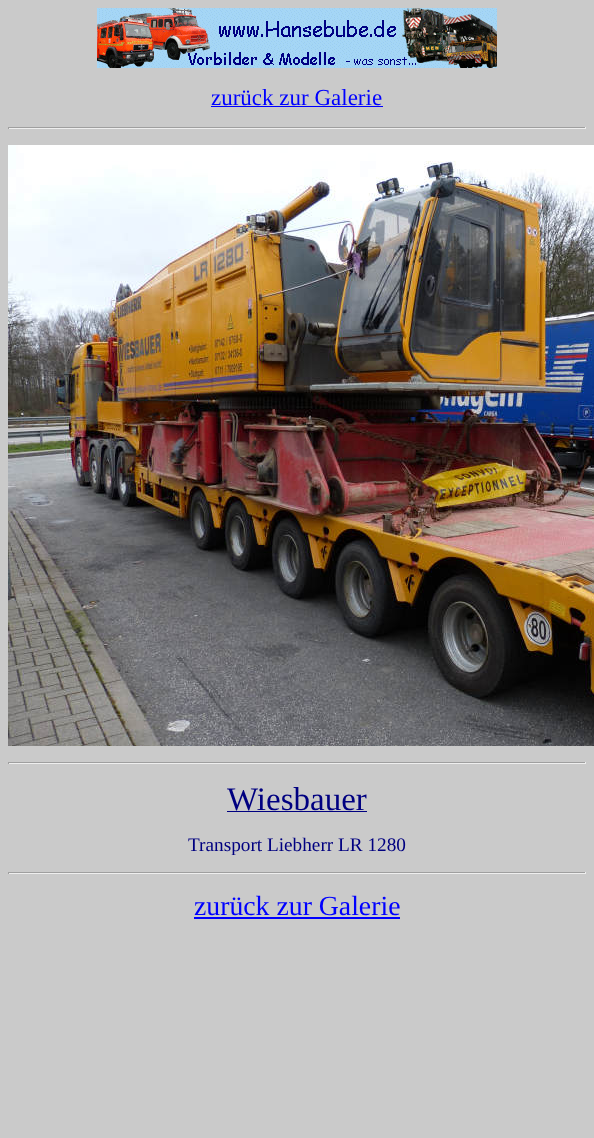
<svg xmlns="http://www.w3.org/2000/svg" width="594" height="1138">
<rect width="100%" height="100%" fill="#cacaca"/>
<image x="97" y="8" width="400" height="60" href="media/1.png"/>
<text x="211" y="105" style="font-family:Liberation Serif;font-size:23px;fill:#00f">zurück zur Galerie</text>
<rect x="211" y="106" width="172" height="1" fill="#00f"/>
<rect x="8" y="127" width="578" height="1" fill="#9f9f9f"/>
<rect x="585" y="127" width="1" height="2" fill="#eee"/>
<rect x="8" y="128" width="578" height="1" fill="#eee"/>
<rect x="8" y="127" width="1" height="2" fill="#9f9f9f"/>
<image x="8" y="145" width="586" height="601" href="media/2.png"/>
<rect x="8" y="762" width="578" height="1" fill="#9f9f9f"/>
<rect x="585" y="762" width="1" height="2" fill="#eee"/>
<rect x="8" y="763" width="578" height="1" fill="#eee"/>
<rect x="8" y="762" width="1" height="2" fill="#9f9f9f"/>
<text x="227" y="810" style="font-family:Liberation Serif;font-size:33px;fill:#000080">Wiesbauer</text>
<rect x="227" y="811" width="140" height="1" fill="#000080"/>
<text x="188" y="851" style="font-family:Liberation Serif;font-size:19.25px;fill:#000080">Transport Liebherr LR 1280</text>
<rect x="8" y="872" width="578" height="1" fill="#9f9f9f"/>
<rect x="585" y="872" width="1" height="2" fill="#eee"/>
<rect x="8" y="873" width="578" height="1" fill="#eee"/>
<rect x="8" y="872" width="1" height="2" fill="#9f9f9f"/>
<text x="194" y="915" style="font-family:Liberation Serif;font-size:27.75px;fill:#00f">zurück zur Galerie</text>
<rect x="194" y="917" width="206" height="2" fill="#00f"/>
</svg>
